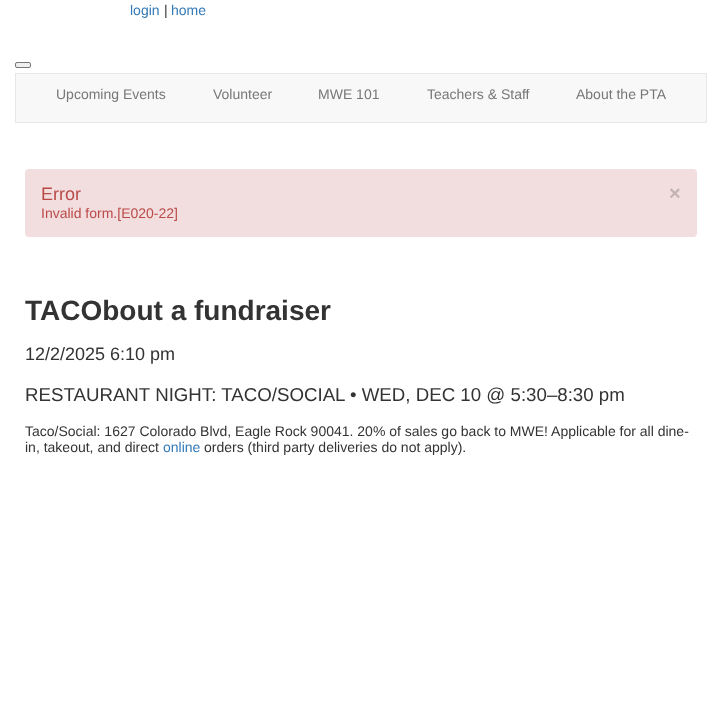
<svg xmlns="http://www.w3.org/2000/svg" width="722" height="724">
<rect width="100%" height="100%" fill="#fff"/>
<text x="130" y="15" style="font-family:Liberation Sans;font-size:14px;fill:#337ab7">login</text>
<text x="164" y="15" style="font-family:Liberation Sans;font-size:14px;fill:#333">|</text>
<text x="171" y="15" style="font-family:Liberation Sans;font-size:14px;fill:#337ab7">home</text>
<rect x="15.5" y="62.5" width="15" height="5" rx="1.5" fill="#efefef" stroke="#767676"/>
<rect x="15.5" y="73.5" width="691" height="49" fill="#f8f8f8" stroke="#e7e7e7"/>
<text x="56" y="99" style="font-family:Liberation Sans;font-size:14px;fill:#777">Upcoming Events</text>
<text x="213" y="99" style="font-family:Liberation Sans;font-size:14px;fill:#777">Volunteer</text>
<text x="318" y="99" style="font-family:Liberation Sans;font-size:14px;fill:#777">MWE 101</text>
<text x="427" y="99" style="font-family:Liberation Sans;font-size:14px;fill:#777">Teachers &amp; Staff</text>
<text x="576" y="99" style="font-family:Liberation Sans;font-size:14px;fill:#777">About the PTA</text>
<rect x="25" y="169" width="672" height="68" rx="4" fill="#f2dede"/>
<text x="41" y="200" style="font-family:Liberation Sans;font-size:18px;fill:#b94a48">Error</text>
<text x="669" y="200" style="font-family:Liberation Sans;font-size:20px;font-weight:bold;fill:#c2b2b2">×</text>
<text x="41" y="218" style="font-family:Liberation Sans;font-size:14px;fill:#b94a48">Invalid form.[E020-22]</text>
<text x="25" y="320" style="font-family:Liberation Sans;font-size:28px;font-weight:bold;fill:#333">TACObout a fundraiser</text>
<text x="25" y="360" style="font-family:Liberation Sans;font-size:18px;fill:#333">12/2/2025 6:10 pm</text>
<text x="25" y="401" style="font-family:Liberation Sans;font-size:18.7px;fill:#333">RESTAURANT NIGHT: TACO/SOCIAL • WED, DEC 10 @ 5:30–8:30 pm</text>
<text x="25" y="436" style="font-family:Liberation Sans;font-size:14px;fill:#333">Taco/Social: 1627 Colorado Blvd, Eagle Rock 90041. 20% of sales go back to MWE! Applicable for all dine-</text>
<text x="25" y="452" style="font-family:Liberation Sans;font-size:14px;fill:#333">in, takeout, and direct</text>
<text x="163" y="452" style="font-family:Liberation Sans;font-size:14px;fill:#337ab7">online</text>
<text x="204" y="452" style="font-family:Liberation Sans;font-size:14px;fill:#333">orders (third party deliveries do not apply).</text>
</svg>
